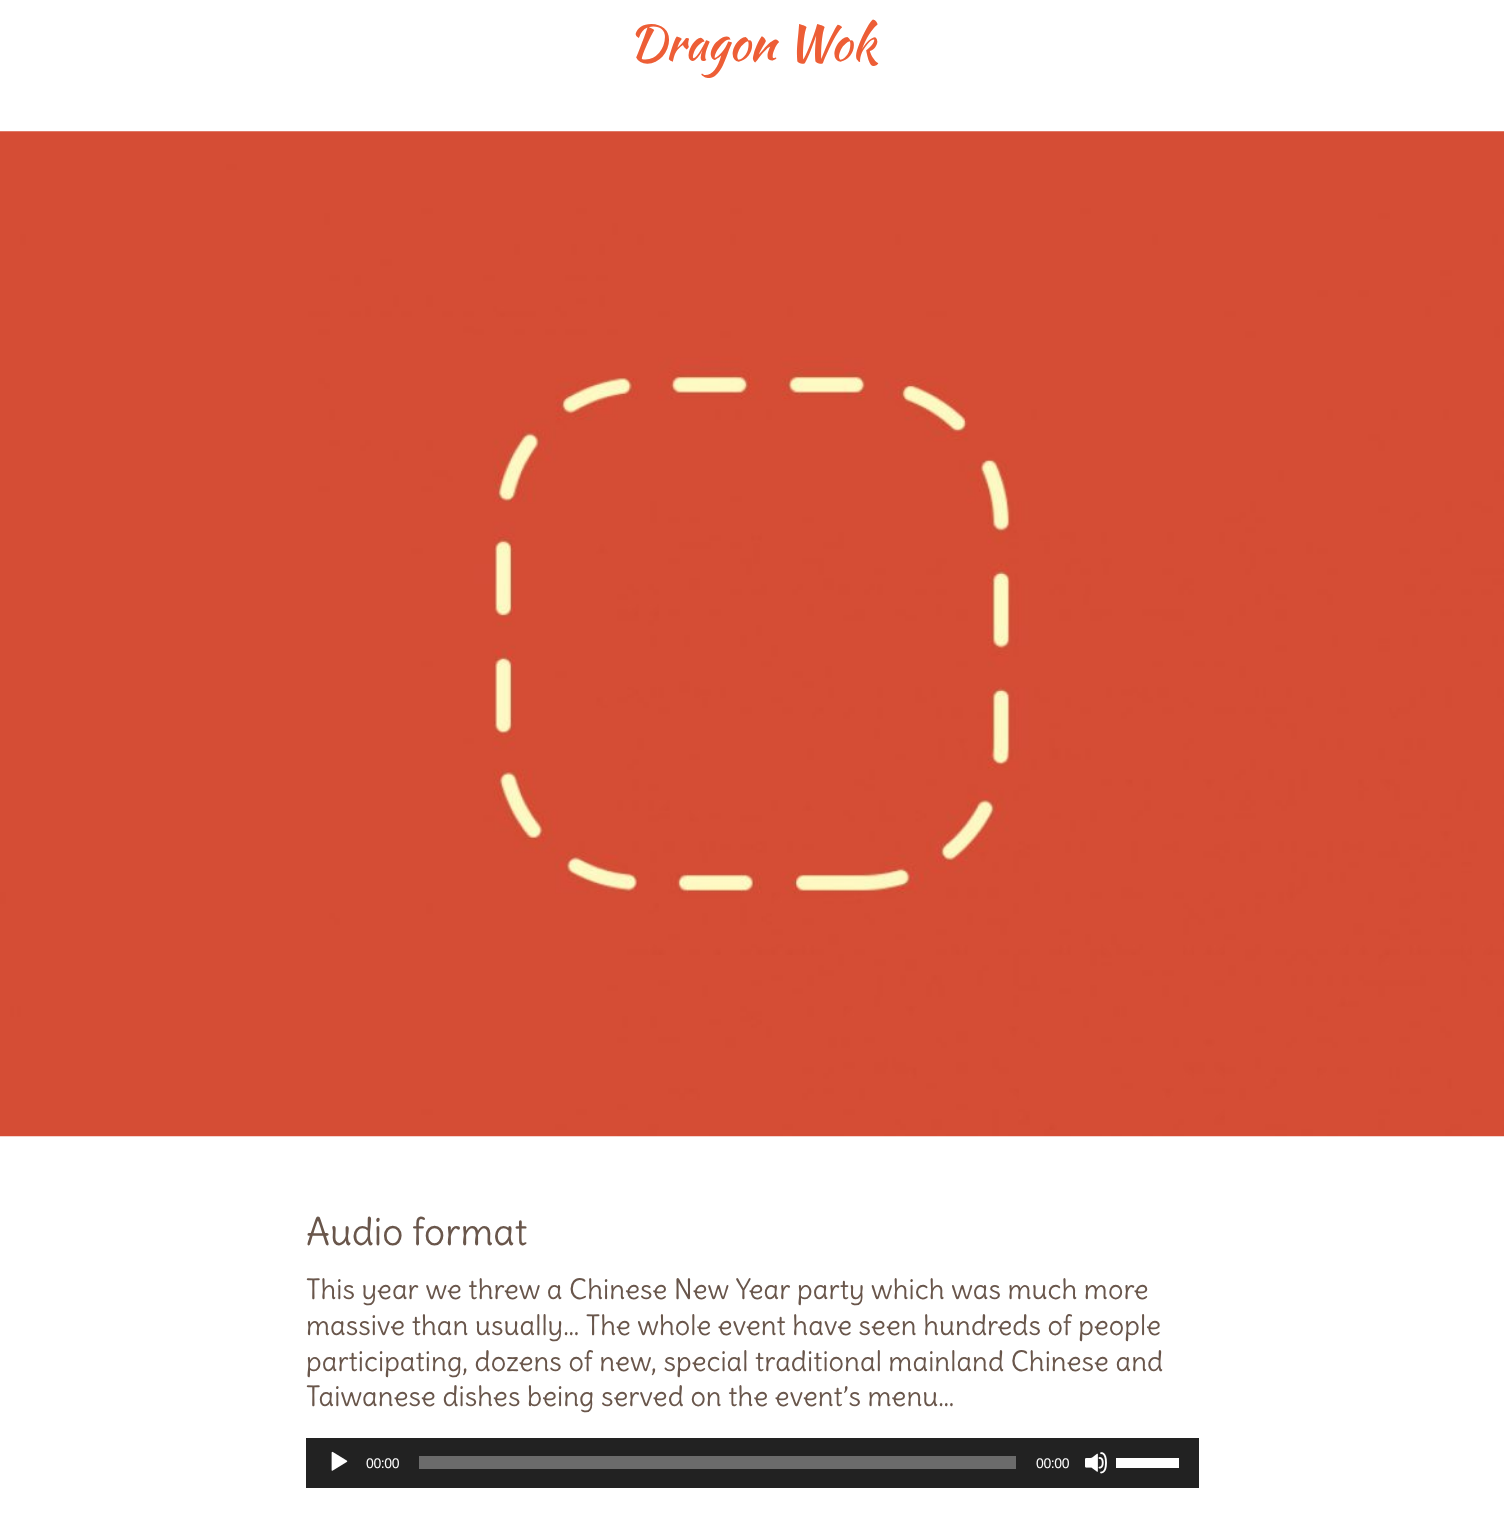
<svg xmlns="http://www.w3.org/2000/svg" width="1504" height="1532">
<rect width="100%" height="100%" fill="#fff"/>
<text x="628" y="60" style="font-family:Kaushan Script;font-size:48.75px;letter-spacing:-0.4px;fill:#ed5e36">Dragon Wok</text>
<image x="0" y="131" width="1504" height="1006" href="media/1.png"/>
<text x="306" y="1245" style="font-family:Delius;font-size:37.5px;fill:#69564b">Audio format</text>
<text x="306" y="1299" style="font-family:Delius;font-size:27.5px;fill:#69564b">This year we threw a Chinese New Year party which was much more</text>
<text x="306" y="1335" style="font-family:Delius;font-size:27.5px;fill:#69564b">massive than usually… The whole event have seen hundreds of people</text>
<text x="306" y="1371" style="font-family:Delius;font-size:27.5px;fill:#69564b">participating, dozens of new, special traditional mainland Chinese and</text>
<text x="306" y="1406" style="font-family:Delius;font-size:27.5px;fill:#69564b">Taiwanese dishes being served on the event’s menu…</text>
<rect x="306" y="1438" width="893" height="50" fill="#222"/>
<image x="331" y="1451" width="17" height="20" href="media/2.png"/>
<text x="366" y="1468" style="font-family:Liberation Sans;font-size:14px;letter-spacing:-0.4px;fill:#fff">00:00</text>
<rect x="419" y="1456" width="597" height="13" fill="#6b6b6b"/>
<text x="1036" y="1468" style="font-family:Liberation Sans;font-size:14px;letter-spacing:-0.4px;fill:#fff">00:00</text>
<image x="1085" y="1452" width="22" height="22" href="media/3.png"/>
<rect x="1116" y="1458" width="63" height="10" fill="#fff"/>
</svg>
